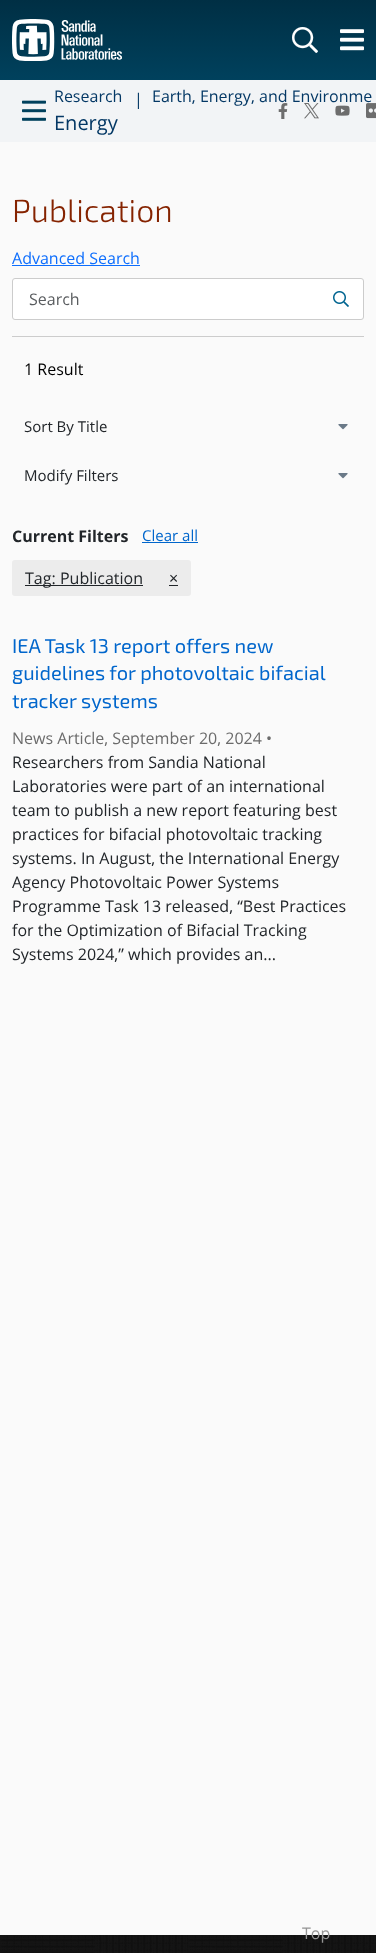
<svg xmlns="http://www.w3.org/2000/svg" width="376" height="1953">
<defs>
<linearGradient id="g1" gradientUnits="userSpaceOnUse" x1="188" y1="0" x2="188" y2="80"><stop offset="0" stop-color="#002f44"/><stop offset="1" stop-color="#00415d"/></linearGradient>
</defs>
<rect width="100%" height="100%" fill="#fafafa"/>
<rect width="376" height="80" fill="url(#g1)"/>
<image x="12" y="19" width="110" height="42" href="media/1.png"/>
<image x="292" y="27" width="26" height="26" href="media/2.png"/>
<image x="340" y="29" width="24" height="22" href="media/3.png"/>
<rect y="80" width="376" height="62" fill="#f2f4f6"/>
<image x="22" y="100" width="24" height="21" href="media/4.png"/>
<text x="54" y="102" style="font-family:Open Sans;font-size:16px;fill:#043865">Research</text>
<text x="134" y="105" style="font-family:Open Sans;font-size:16px;fill:#043865">|</text>
<image x="278" y="103" width="10" height="16" href="media/5.png"/>
<image x="304" y="103" width="15" height="16" href="media/6.png"/>
<image x="335" y="105" width="15" height="11" href="media/7.png"/>
<image x="366" y="103" width="10" height="16" href="media/8.png"/>
<text x="152" y="102" style="font-family:Open Sans;font-size:16px;fill:#043865">Earth, Energy, and Environme</text>
<text x="54" y="130" style="font-family:Open Sans;font-size:20px;fill:#043865">Energy</text>
<rect x="12" y="336" width="352" height="1" fill="#ccc"/>
<text x="12" y="222" style="font-family:'Exo 2';font-size:32px;font-weight:300;fill:#852300">Publication</text>
<text x="12" y="264" style="font-family:Open Sans;font-size:16px;fill:#0d6efd">Advanced Search</text>
<rect x="12" y="265" width="128" height="1" fill="#0d6efd"/>
<rect x="12.5" y="278.5" width="351" height="41" rx="2.5" fill="#fff" stroke="#ccc"/>
<text x="29" y="305" style="font-family:Open Sans;font-size:16px;fill:#595c5f">Search</text>
<image x="333" y="291" width="16" height="16" href="media/9.png"/>
<text x="24" y="375" style="font-family:Open Sans;font-size:16px;fill:#000">1 Result</text>
<image x="338" y="424" width="10" height="6" href="media/10.png"/>
<text x="24" y="432" style="font-family:Open Sans;font-size:15px;fill:#212529">Sort By Title</text>
<image x="338" y="473" width="10" height="6" href="media/10.png"/>
<text x="24" y="481" style="font-family:Open Sans;font-size:15px;fill:#212529">Modify Filters</text>
<text x="12" y="542" style="font-family:Open Sans;font-size:16px;font-weight:bold;fill:#212529">Current Filters</text>
<text x="142" y="541" style="font-family:Open Sans;font-size:15px;fill:#06c">Clear all</text>
<rect x="142" y="542" width="56" height="1" fill="#06c"/>
<rect x="12" y="560" width="179" height="36" rx="3" fill="#ececec"/>
<rect x="25" y="585" width="118" height="1" fill="#212529"/>
<text x="25" y="584" style="font-family:Open Sans;font-size:16px;fill:#212529">Tag: Publication</text>
<text x="169" y="584" style="font-family:Open Sans;font-size:16px;fill:#212529">×</text>
<rect x="169" y="585" width="9" height="1" fill="#212529"/>
<text x="12" y="653" style="font-family:'Exo 2';font-size:20px;fill:#06c">IEA Task 13 report offers new</text>
<text x="12" y="680" style="font-family:'Exo 2';font-size:20px;fill:#06c">guidelines for photovoltaic bifacial</text>
<text x="12" y="708" style="font-family:'Exo 2';font-size:20px;fill:#06c">tracker systems</text>
<text x="12" y="744" style="font-family:Open Sans;font-size:16px;fill:#6b6b6b">News Article, September 20, 2024 •</text>
<text x="12" y="768" style="font-family:Open Sans;font-size:16px;fill:#212529">Researchers from Sandia National</text>
<text x="12" y="792" style="font-family:Open Sans;font-size:16px;fill:#212529">Laboratories were part of an international</text>
<text x="12" y="816" style="font-family:Open Sans;font-size:16px;fill:#212529">team to publish a new report featuring best</text>
<text x="12" y="840" style="font-family:Open Sans;font-size:16px;fill:#212529">practices for bifacial photovoltaic tracking</text>
<text x="12" y="864" style="font-family:Open Sans;font-size:16px;fill:#212529">systems. In August, the International Energy</text>
<text x="12" y="888" style="font-family:Open Sans;font-size:16px;fill:#212529">Agency Photovoltaic Power Systems</text>
<text x="12" y="912" style="font-family:Open Sans;font-size:16px;fill:#212529">Programme Task 13 released, “Best Practices</text>
<text x="12" y="936" style="font-family:Open Sans;font-size:16px;fill:#212529">for the Optimization of Bifacial Tracking</text>
<text x="12" y="960" style="font-family:Open Sans;font-size:16px;fill:#212529">Systems 2024,” which provides an...</text>
<image x="0" y="1935" width="376" height="18" href="media/11.png"/>
<text x="302" y="1939" style="font-family:Open Sans;font-size:16px;fill:#949494">Top</text>
</svg>
